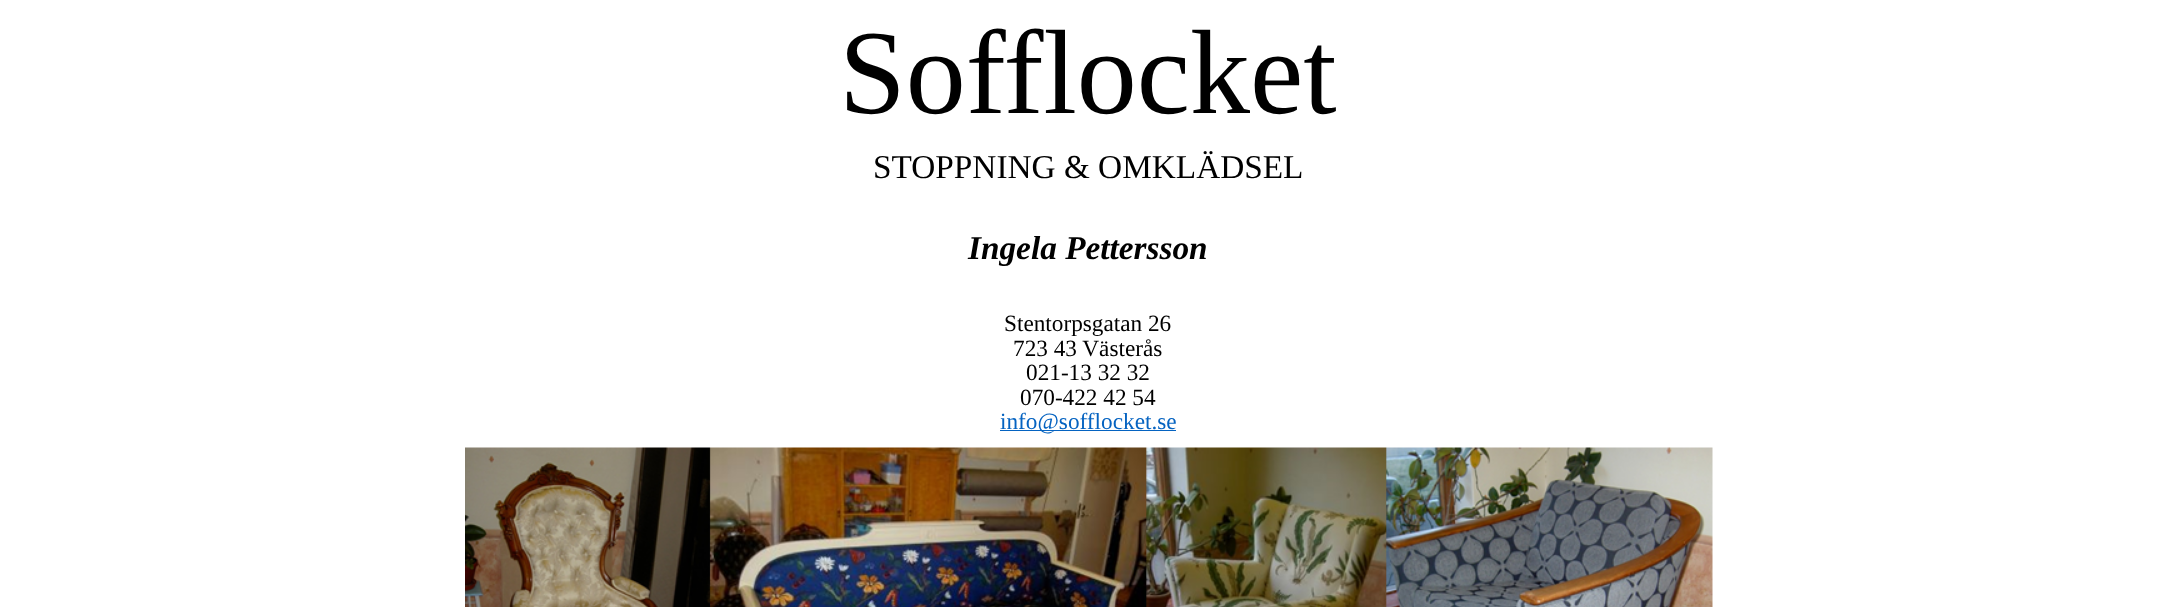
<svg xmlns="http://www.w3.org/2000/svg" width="2176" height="607">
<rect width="100%" height="100%" fill="#fff"/>
<text x="839" y="113" style="font-family:Liberation Serif;font-size:120px;fill:#000">Sofflocket</text>
<text x="873" y="178" style="font-family:Liberation Serif;font-size:33.3px;fill:#000">STOPPNING &amp; OMKLÄDSEL</text>
<text x="968" y="259" style="font-family:Liberation Serif;font-size:33.3px;font-weight:bold;font-style:italic;fill:#000">Ingela Pettersson</text>
<text x="1004" y="331" style="font-family:Liberation Serif;font-size:23.25px;fill:#000">Stentorpsgatan 26</text>
<text x="1013" y="356" style="font-family:Liberation Serif;font-size:23.25px;fill:#000">723 43 Västerås</text>
<text x="1026" y="380" style="font-family:Liberation Serif;font-size:23.25px;fill:#000">021-13 32 32</text>
<text x="1020" y="405" style="font-family:Liberation Serif;font-size:23.25px;fill:#000">070-422 42 54</text>
<rect x="1000" y="430" width="176" height="1" fill="#0563c1"/>
<text x="1000" y="429" style="font-family:Liberation Serif;font-size:23.25px;fill:#0563c1">info@sofflocket.se</text>
<image x="465" y="447" width="1248" height="160" href="media/1.png"/>
</svg>
